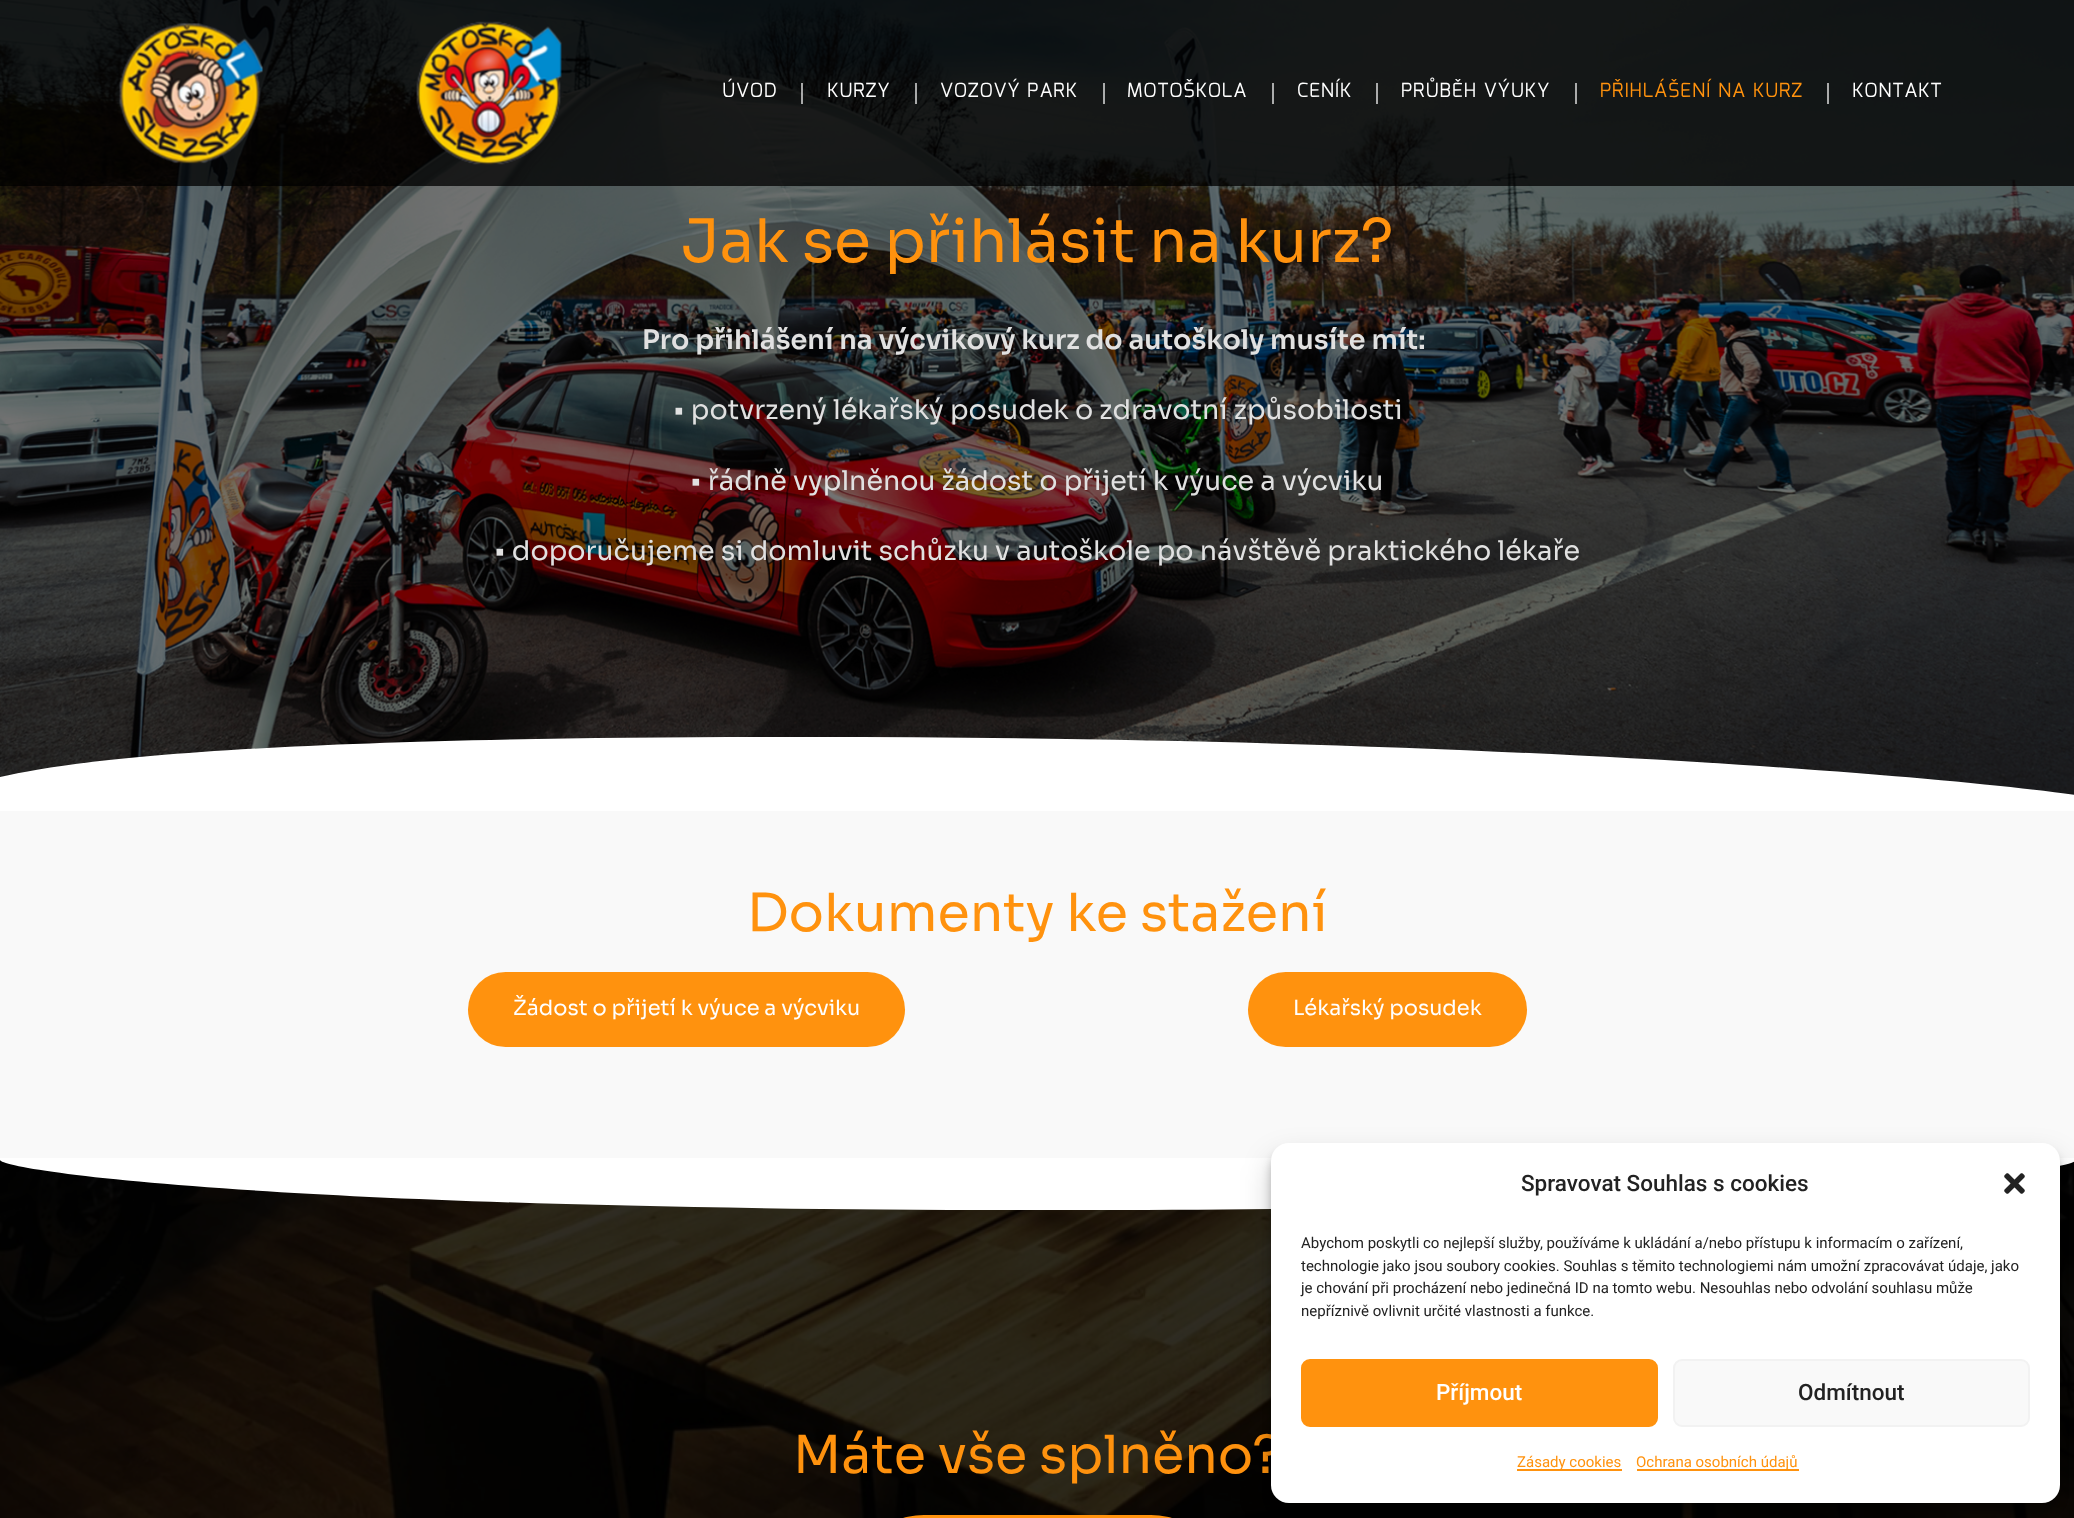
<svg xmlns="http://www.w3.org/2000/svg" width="2074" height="1518">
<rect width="100%" height="100%" fill="#f9f9f9"/>
<image x="0" y="0" width="2074" height="795" href="media/3.png"/>
<rect width="2074" height="186" fill="#000000c2"/>
<image x="119" y="23" width="144" height="141" href="media/1.png"/>
<image x="416" y="21" width="146" height="144" href="media/2.png"/>
<text x="722" y="97" style="font-family:Mina;font-size:19.5px;letter-spacing:0.75px;fill:#fff">ÚVOD</text>
<rect x="801" y="83" width="2" height="21" fill="#ffffffa3"/>
<text x="827" y="97" style="font-family:Mina;font-size:19.5px;letter-spacing:0.75px;fill:#fff">KURZY</text>
<rect x="915" y="83" width="2" height="21" fill="#ffffffa3"/>
<text x="940" y="97" style="font-family:Mina;font-size:19.5px;letter-spacing:0.75px;fill:#fff">VOZOVÝ PARK</text>
<rect x="1103" y="83" width="2" height="21" fill="#aaacac"/>
<text x="1127" y="97" style="font-family:Mina;font-size:19.5px;letter-spacing:0.75px;fill:#fff">MOTOŠKOLA</text>
<rect x="1272" y="83" width="2" height="21" fill="#abacac"/>
<text x="1297" y="97" style="font-family:Mina;font-size:19.5px;letter-spacing:0.75px;fill:#fff">CENÍK</text>
<rect x="1376" y="83" width="2" height="21" fill="#abacac"/>
<text x="1401" y="97" style="font-family:Mina;font-size:19.5px;letter-spacing:0.75px;fill:#fff">PRŮBĚH VÝUKY</text>
<rect x="1575" y="83" width="2" height="21" fill="#aaabab"/>
<text x="1600" y="97" style="font-family:Mina;font-size:19.5px;letter-spacing:0.75px;fill:#ff920e">PŘIHLÁŠENÍ NA KURZ</text>
<rect x="1827" y="83" width="2" height="21" fill="#aaabab"/>
<text x="1852" y="97" style="font-family:Mina;font-size:19.5px;letter-spacing:0.75px;fill:#fff">KONTAKT</text>
<text x="681" y="262" style="font-family:Sora;font-size:60px;fill:#ff920e">Jak se přihlásit na kurz?</text>
<text x="642" y="349" style="font-family:Sora;font-size:27px;font-weight:600;fill:#e1e1e1">Pro přihlášení na výcvikový kurz do autoškoly musíte mít:</text>
<text x="673" y="419" style="font-family:Sora;font-size:27px;fill:#e1e1e1">• potvrzený lékařský posudek o zdravotní způsobilosti</text>
<text x="690" y="490" style="font-family:Sora;font-size:27px;fill:#e1e1e1">• řádně vyplněnou žádost o přijetí k výuce a výcviku</text>
<text x="494" y="560" style="font-family:Sora;font-size:27px;fill:#e1e1e1">• doporučujeme si domluvit schůzku v autoškole po návštěvě praktického lékaře</text>
<path d="M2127 811v-5c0-13-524-70-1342-69c-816 0-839 55-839 69v5z" fill="#fff"/>
<text x="747" y="931" style="font-family:Sora;font-size:52.5px;fill:#ff920e">Dokumenty ke stažení</text>
<rect x="468" y="972" width="437" height="75" rx="37.5" fill="#ff920e"/>
<text x="513" y="1015" style="font-family:Sora;font-size:21px;fill:#fff">Žádost o přijetí k výuce a výcviku</text>
<rect x="1248" y="972" width="279" height="75" rx="37.5" fill="#ff920e"/>
<text x="1293" y="1015" style="font-family:Sora;font-size:21px;fill:#fff">Lékařský posudek</text>
<image x="0" y="1160" width="2074" height="358" href="media/4.png"/>
<path d="M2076 1160v-2h-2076v2c2 10 263 50 1038 50c775 1 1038-40 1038-50z" fill="#fff"/>
<text x="793" y="1473" style="font-family:Sora;font-size:52.5px;fill:#ff920e">Máte vše splněno?</text>
<rect x="882" y="1515" width="311" height="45" rx="42" fill="#ff920e"/>
<rect x="1271" y="1152" width="789" height="360" rx="18" fill="#0000003b" filter="blur(4.5px)"/>
<rect x="1271" y="1158" width="789" height="360" rx="18" fill="#00000030" filter="blur(15px)"/>
<rect x="1271" y="1143" width="789" height="360" rx="18" fill="#fff"/>
<text x="1521" y="1191" style="font-family:Roboto;font-size:22.5px;font-weight:500;fill:#222">Spravovat Souhlas s cookies</text>
<image x="2004" y="1173" width="21" height="21" href="media/5.png"/>
<text x="1301" y="1248" style="font-family:Roboto;font-size:15px;fill:#222">Abychom poskytli co nejlepší služby, používáme k ukládání a/nebo přístupu k informacím o zařízení,</text>
<text x="1301" y="1271" style="font-family:Roboto;font-size:15px;fill:#222">technologie jako jsou soubory cookies. Souhlas s těmito technologiemi nám umožní zpracovávat údaje, jako</text>
<text x="1301" y="1293" style="font-family:Roboto;font-size:15px;fill:#222">je chování při procházení nebo jedinečná ID na tomto webu. Nesouhlas nebo odvolání souhlasu může</text>
<text x="1301" y="1316" style="font-family:Roboto;font-size:15px;fill:#222">nepříznivě ovlivnit určité vlastnosti a funkce.</text>
<rect x="1302" y="1360" width="355" height="66" rx="8" fill="#ff920e" stroke="#ff920e" stroke-width="2"/>
<text x="1436" y="1400" style="font-family:Roboto;font-size:22.5px;font-weight:500;fill:#fff">Příjmout</text>
<rect x="1674" y="1360" width="355" height="66" rx="8" fill="#f9f9f9" stroke="#f2f2f2" stroke-width="2"/>
<text x="1798" y="1400" style="font-family:Roboto;font-size:22.5px;font-weight:500;fill:#222">Odmítnout</text>
<rect x="1517" y="1469" width="105" height="2" fill="#ff920e"/>
<text x="1517" y="1467" style="font-family:Roboto;font-size:15px;fill:#ff920e">Zásady cookies</text>
<rect x="1637" y="1469" width="162" height="2" fill="#ff920e"/>
<text x="1636" y="1467" style="font-family:Roboto;font-size:15px;fill:#ff920e">Ochrana osobních údajů</text>
</svg>
